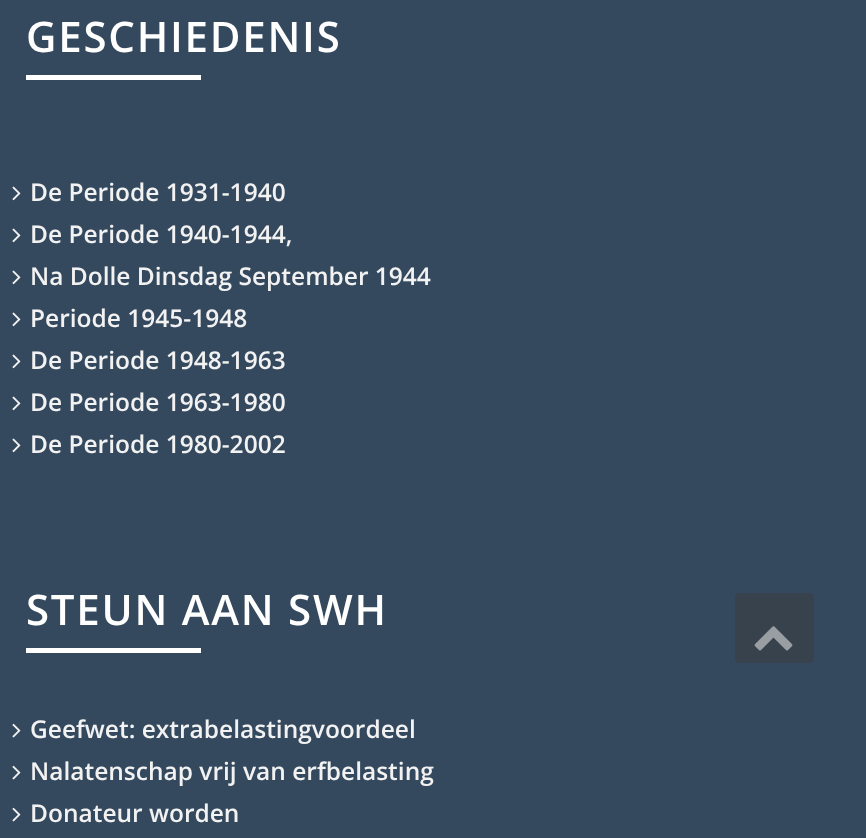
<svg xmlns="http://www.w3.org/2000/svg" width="866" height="838">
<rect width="100%" height="100%" fill="#34495e"/>
<text x="26" y="52" style="font-family:Open Sans;font-size:42px;font-weight:600;letter-spacing:1.75px;fill:#fff">GESCHIEDENIS</text>
<rect x="26" y="75" width="175" height="5" fill="#fff"/>
<image x="12" y="186" width="9" height="15" href="media/1.png"/>
<text x="30" y="201" style="font-family:Open Sans;font-size:24.5px;font-weight:600;fill:#f2f2f2">De Periode 1931-1940</text>
<image x="12" y="228" width="9" height="15" href="media/1.png"/>
<text x="30" y="243" style="font-family:Open Sans;font-size:24.5px;font-weight:600;fill:#f2f2f2">De Periode 1940-1944,</text>
<image x="12" y="270" width="9" height="15" href="media/1.png"/>
<text x="30" y="285" style="font-family:Open Sans;font-size:24.5px;font-weight:600;fill:#f2f2f2">Na Dolle Dinsdag September 1944</text>
<image x="12" y="312" width="9" height="15" href="media/1.png"/>
<text x="30" y="327" style="font-family:Open Sans;font-size:24.5px;font-weight:600;fill:#f2f2f2">Periode 1945-1948</text>
<image x="12" y="354" width="9" height="15" href="media/1.png"/>
<text x="30" y="369" style="font-family:Open Sans;font-size:24.5px;font-weight:600;fill:#f2f2f2">De Periode 1948-1963</text>
<image x="12" y="396" width="9" height="15" href="media/1.png"/>
<text x="30" y="411" style="font-family:Open Sans;font-size:24.5px;font-weight:600;fill:#f2f2f2">De Periode 1963-1980</text>
<image x="12" y="438" width="9" height="15" href="media/1.png"/>
<text x="30" y="453" style="font-family:Open Sans;font-size:24.5px;font-weight:600;fill:#f2f2f2">De Periode 1980-2002</text>
<text x="26" y="625" style="font-family:Open Sans;font-size:42px;font-weight:600;letter-spacing:1.75px;fill:#fff">STEUN AAN SWH</text>
<rect x="26" y="648" width="175" height="5" fill="#fff"/>
<image x="12" y="723" width="9" height="15" href="media/2.png"/>
<text x="30" y="738" style="font-family:Open Sans;font-size:24.5px;font-weight:600;fill:#f2f2f2">Geefwet: extrabelastingvoordeel</text>
<image x="12" y="765" width="9" height="15" href="media/2.png"/>
<text x="30" y="780" style="font-family:Open Sans;font-size:24.5px;font-weight:600;fill:#f2f2f2">Nalatenschap vrij van erfbelasting</text>
<image x="12" y="807" width="9" height="15" href="media/2.png"/>
<text x="30" y="822" style="font-family:Open Sans;font-size:24.5px;font-weight:600;fill:#f2f2f2">Donateur worden</text>
<rect x="735" y="593" width="79" height="70" rx="4" fill="#38424d"/>
<image x="754" y="626" width="39" height="25" href="media/3.png"/>
</svg>
